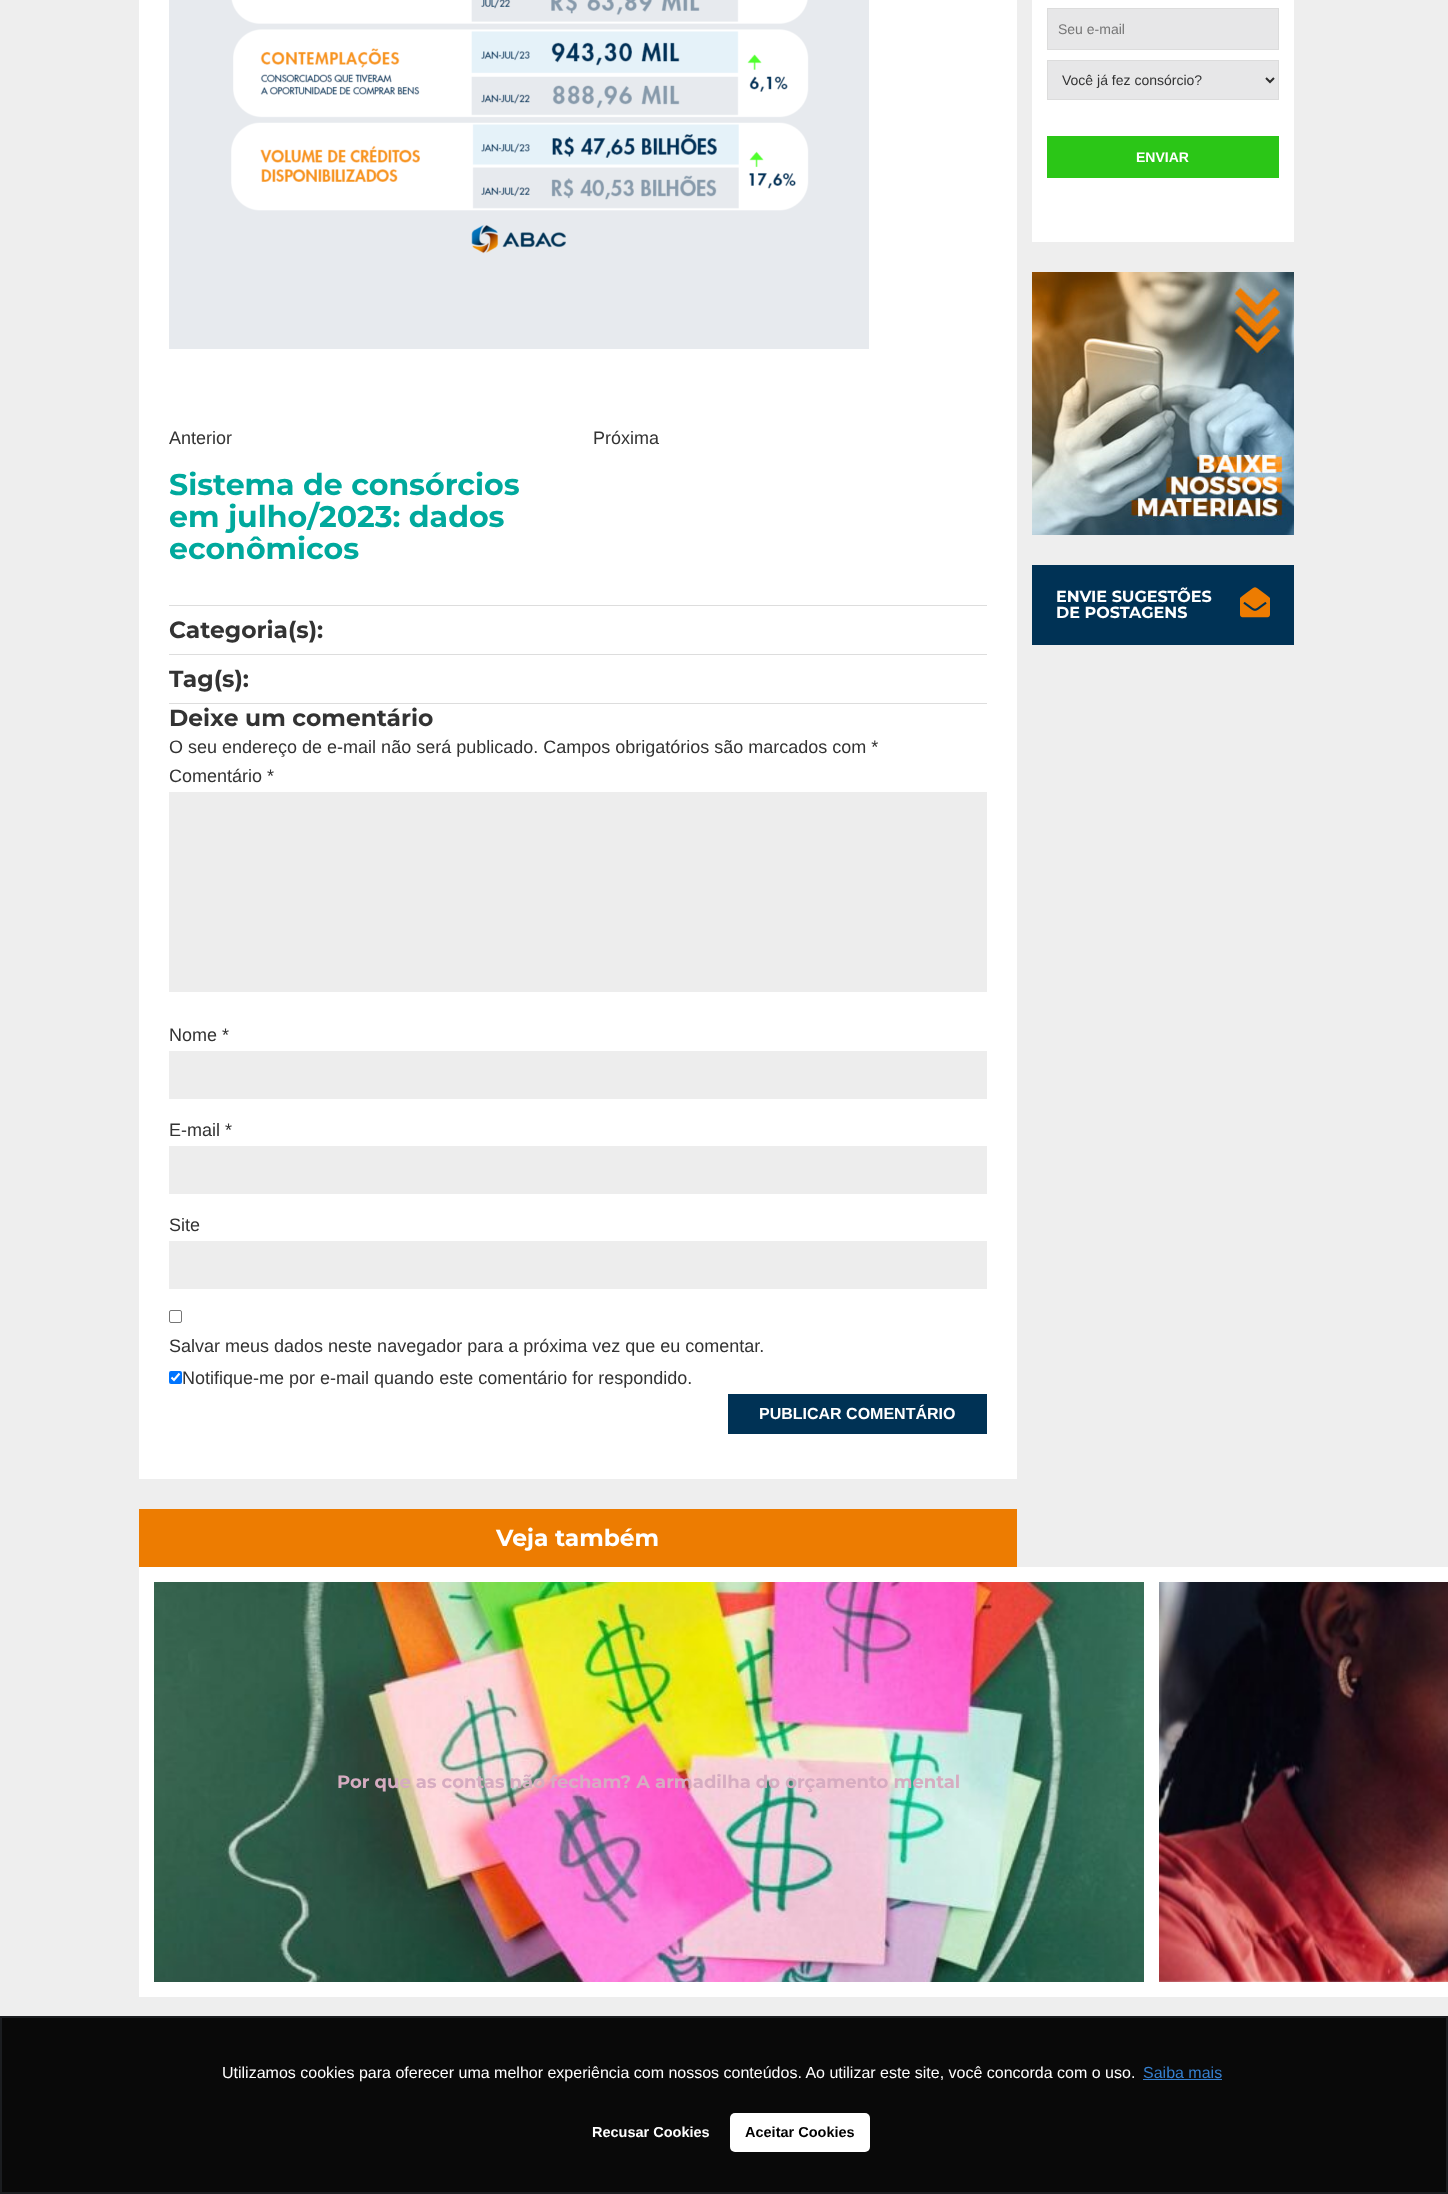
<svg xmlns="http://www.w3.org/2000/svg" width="1448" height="2194">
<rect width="100%" height="100%" fill="#eee"/>
<rect x="1032" width="262" height="242" fill="#fff"/>
<rect x="1047.5" y="8.5" width="231" height="41" fill="#e7e7e8" stroke="#dcdcdc"/>
<text x="1058" y="34" style="font-family:Liberation Sans;font-size:14px;fill:#757575">Seu e-mail</text>
<rect x="1047.5" y="60.5" width="231" height="39" fill="#e7e7e8" stroke="#dcdcdc"/>
<path d="M1266 78l4 4l4-4" fill="none" stroke="#2e2e2e" stroke-width="2"/>
<text x="1062" y="85" style="font-family:Liberation Sans;font-size:14px;fill:#333">Você já fez consórcio?</text>
<rect x="1047" y="136" width="232" height="42" fill="#2bc617"/>
<text x="1136" y="162" style="font-family:Liberation Sans;font-size:14px;font-weight:bold;fill:#fff">ENVIAR</text>
<image x="1032" y="272" width="262" height="263" href="media/1.png"/>
<rect x="1032" y="565" width="262" height="80" fill="#003255"/>
<text x="1056" y="602" style="font-family:Montserrat;font-size:16px;font-weight:bold;fill:#fff">ENVIE SUGESTÕES</text>
<image x="1240" y="587" width="30" height="31" href="media/2.png"/>
<text x="1056" y="618" style="font-family:Montserrat;font-size:16px;font-weight:bold;fill:#fff">DE POSTAGENS</text>
<rect x="139" width="878" height="1479" fill="#fff"/>
<image x="169" y="0" width="700" height="349" href="media/3.png"/>
<text x="169" y="444" style="font-family:Liberation Sans;font-size:18px;fill:#333">Anterior</text>
<text x="169" y="495" style="font-family:Montserrat;font-size:30px;font-weight:bold;fill:#00a99d">Sistema de consórcios</text>
<text x="169" y="527" style="font-family:Montserrat;font-size:30px;font-weight:bold;fill:#00a99d">em julho/2023: dados</text>
<text x="169" y="559" style="font-family:Montserrat;font-size:30px;font-weight:bold;fill:#00a99d">econômicos</text>
<text x="593" y="444" style="font-family:Liberation Sans;font-size:18px;fill:#333">Próxima</text>
<rect x="169" y="605" width="818" height="1" fill="#ddd"/>
<text x="169" y="638" style="font-family:Montserrat;font-size:23.4px;font-weight:bold;fill:#333">Categoria(s):</text>
<rect x="169" y="654" width="818" height="1" fill="#ddd"/>
<text x="169" y="687" style="font-family:Montserrat;font-size:23.4px;font-weight:bold;fill:#333">Tag(s):</text>
<rect x="169" y="703" width="818" height="1" fill="#ddd"/>
<text x="169" y="726" style="font-family:Montserrat;font-size:23.4px;font-weight:bold;fill:#333">Deixe um comentário</text>
<text x="169" y="753" style="font-family:Liberation Sans;font-size:18px;fill:#333">O seu endereço de e-mail não será publicado. Campos obrigatórios são marcados com *</text>
<text x="169" y="782" style="font-family:Liberation Sans;font-size:18px;fill:#333">Comentário *</text>
<rect x="169" y="792" width="818" height="200" fill="#ededed"/>
<text x="169" y="1041" style="font-family:Liberation Sans;font-size:18px;fill:#333">Nome *</text>
<rect x="169" y="1051" width="818" height="48" fill="#ededed"/>
<text x="169" y="1136" style="font-family:Liberation Sans;font-size:18px;fill:#333">E-mail *</text>
<rect x="169" y="1146" width="818" height="48" fill="#ededed"/>
<text x="169" y="1231" style="font-family:Liberation Sans;font-size:18px;fill:#333">Site</text>
<rect x="169" y="1241" width="818" height="48" fill="#ededed"/>
<rect x="169.5" y="1310.5" width="12" height="12" rx="1.5" fill="none" stroke="#767676"/>
<text x="169" y="1352" style="font-family:Liberation Sans;font-size:18px;fill:#333">Salvar meus dados neste navegador para a próxima vez que eu comentar.</text>
<rect x="169" y="1371" width="13" height="13" rx="2" fill="#0075ff"/>
<path d="M171.5 1377.5l2.5 2.5l5.5-6.5" fill="none" stroke="#fff" stroke-width="2.1"/>
<text x="182" y="1384" style="font-family:Liberation Sans;font-size:18px;fill:#333">Notifique-me por e-mail quando este comentário for respondido.</text>
<rect x="728" y="1394" width="259" height="40" fill="#003255"/>
<text x="759" y="1419" style="font-family:Liberation Sans;font-size:16px;font-weight:bold;fill:#fff">PUBLICAR COMENTÁRIO</text>
<rect x="139" y="1509" width="878" height="58" fill="#ed7c01"/>
<text x="496" y="1546" style="font-family:Montserrat;font-size:23.4px;font-weight:bold;fill:#fff">Veja também</text>
<rect x="139" y="1567" width="1309" height="430" fill="#fff"/>
<image x="154" y="1582" width="990" height="400" href="media/4.png"/>
<text x="337" y="1788" style="font-family:Montserrat;font-size:18px;font-weight:bold;fill:#d6acc1">Por que as contas não fecham? A armadilha do orçamento mental</text>
<image x="1159" y="1582" width="289" height="400" href="media/5.png"/>
<rect x="1" y="2017" width="1446" height="176" fill="#090909" stroke="#1b1d20" stroke-width="2"/>
<text x="222" y="2078" style="font-family:Liberation Sans;font-size:16px;fill:#fff">Utilizamos cookies para oferecer uma melhor experiência com nossos conteúdos. Ao utilizar este site, você concorda com o uso.</text>
<text x="1143" y="2078" style="font-family:Liberation Sans;font-size:16px;fill:#357fce">Saiba mais</text>
<rect x="1143" y="2079" width="79" height="1" fill="#357fce"/>
<text x="592" y="2137" style="font-family:Liberation Sans;font-size:14.5px;font-weight:bold;fill:#fff">Recusar Cookies</text>
<rect x="730" y="2113" width="140" height="39" rx="5" fill="#fff"/>
<text x="745" y="2137" style="font-family:Liberation Sans;font-size:14.5px;font-weight:bold;fill:#000">Aceitar Cookies</text>
</svg>
